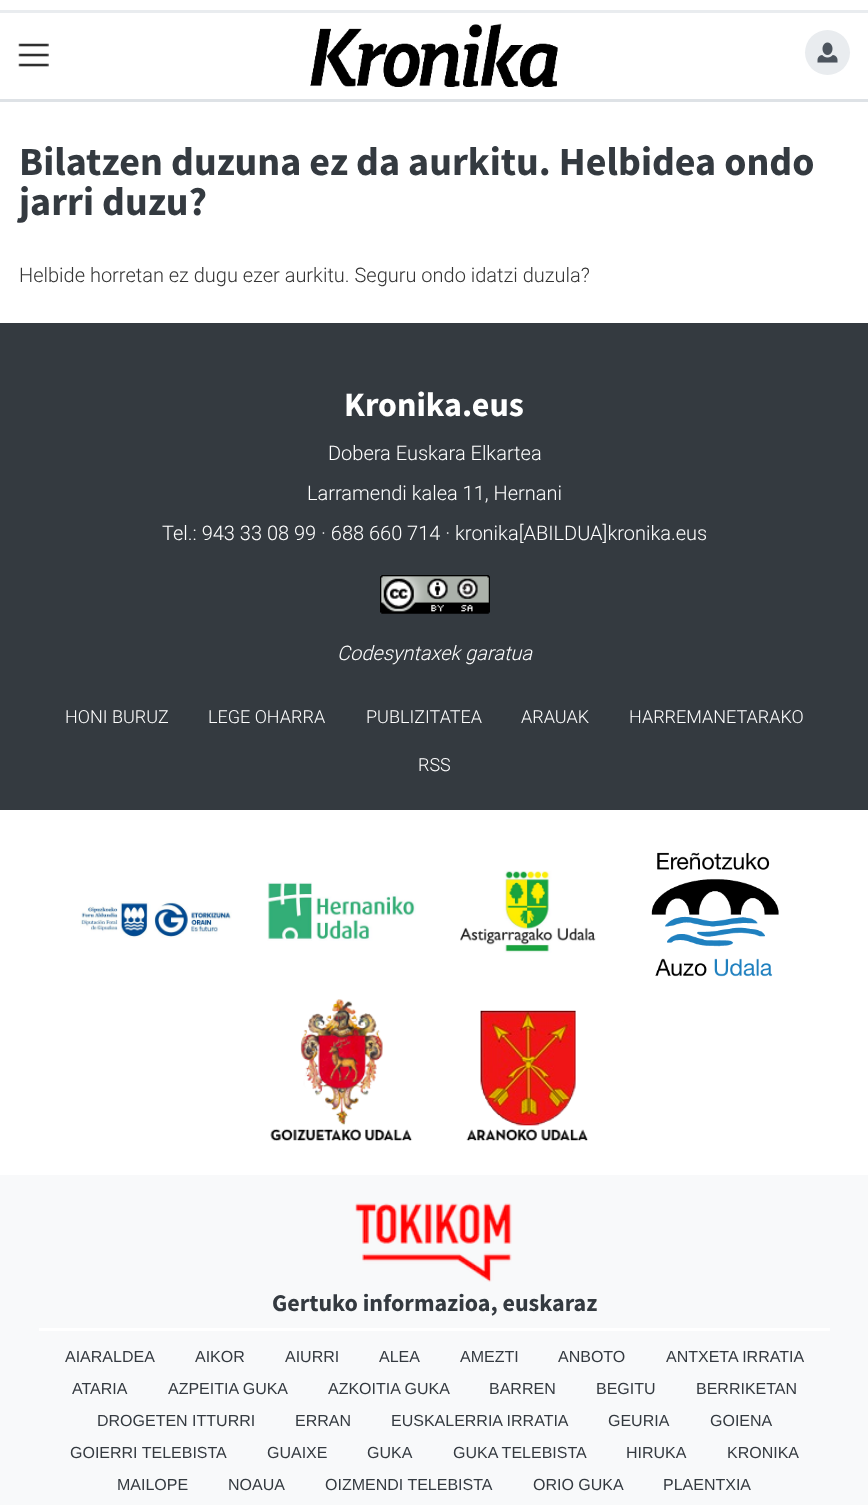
<svg xmlns="http://www.w3.org/2000/svg" width="868" height="1505">
<rect width="100%" height="100%" fill="#fff"/>
<rect y="10" width="868" height="3" fill="#e9ecef"/>
<image x="18" y="43" width="31" height="24" href="media/1.png"/>
<image x="310" y="23" width="249" height="64" href="media/2.png"/>
<circle cx="827.5" cy="52.5" r="22.5" fill="#e9ecef"/>
<image x="817" y="42" width="21" height="21" href="media/3.png"/>
<rect y="99" width="868" height="3" fill="#dee2e6"/>
<text x="19" y="175" style="font-family:Source Sans Pro;font-size:40px;font-weight:bold;fill:#343a40">Bilatzen duzuna ez da aurkitu. Helbidea ondo</text>
<text x="19" y="215" style="font-family:Source Sans Pro;font-size:40px;font-weight:bold;fill:#343a40">jarri duzu?</text>
<text x="19" y="282" style="font-family:Roboto;font-size:20px;font-weight:300;fill:#333">Helbide horretan ez dugu ezer aurkitu. Seguru ondo idatzi duzula?</text>
<rect y="323" width="868" height="487" fill="#343a40"/>
<text x="344" y="416" style="font-family:Source Sans Pro;font-size:34px;font-weight:bold;fill:#fff">Kronika.eus</text>
<text x="328" y="460" style="font-family:Roboto;font-size:20px;font-weight:300;fill:#fff">Dobera Euskara Elkartea</text>
<text x="307" y="500" style="font-family:Roboto;font-size:20px;font-weight:300;fill:#fff">Larramendi kalea 11, Hernani</text>
<text x="162" y="540" style="font-family:Roboto;font-size:20px;font-weight:300;fill:#fff">Tel.: 943 33 08 99 · 688 660 714 · kronika[ABILDUA]kronika.eus</text>
<image x="380" y="575" width="110" height="39" href="media/4.png"/>
<text x="337" y="660" style="font-family:Roboto;font-size:20px;font-weight:300;font-style:italic;fill:#fff">Codesyntaxek garatua</text>
<text x="65" y="723" style="font-family:Roboto;font-size:18px;font-weight:300;fill:#fff">HONI BURUZ</text>
<text x="208" y="723" style="font-family:Roboto;font-size:18px;font-weight:300;fill:#fff">LEGE OHARRA</text>
<text x="366" y="723" style="font-family:Roboto;font-size:18px;font-weight:300;fill:#fff">PUBLIZITATEA</text>
<text x="521" y="723" style="font-family:Roboto;font-size:18px;font-weight:300;fill:#fff">ARAUAK</text>
<text x="629" y="723" style="font-family:Roboto;font-size:18px;font-weight:300;fill:#fff">HARREMANETARAKO</text>
<text x="418" y="771" style="font-family:Roboto;font-size:18px;font-weight:300;fill:#fff">RSS</text>
<image x="80" y="901" width="152" height="37" href="media/5.png"/>
<image x="267" y="882" width="149" height="59" href="media/6.png"/>
<image x="460" y="870" width="136" height="83" href="media/7.png"/>
<image x="651" y="852" width="128" height="125" href="media/8.png"/>
<image x="270" y="999" width="143" height="142" href="media/9.png"/>
<image x="466" y="1010" width="123" height="131" href="media/10.png"/>
<rect y="1175" width="868" height="330" fill="#f8f9fa"/>
<image x="355" y="1203" width="157" height="79" href="media/11.png"/>
<text x="272" y="1311" style="font-family:Source Sans Pro;font-size:24px;font-weight:bold;fill:#343a40">Gertuko informazioa, euskaraz</text>
<rect x="39" y="1328" width="791" height="3" fill="#fff"/>
<text x="65" y="1362" style="font-family:Liberation Sans;font-size:16px;fill:#343a40">AIARALDEA</text>
<text x="195" y="1362" style="font-family:Liberation Sans;font-size:16px;fill:#343a40">AIKOR</text>
<text x="285" y="1362" style="font-family:Liberation Sans;font-size:16px;fill:#343a40">AIURRI</text>
<text x="379" y="1362" style="font-family:Liberation Sans;font-size:16px;fill:#343a40">ALEA</text>
<text x="460" y="1362" style="font-family:Liberation Sans;font-size:16px;fill:#343a40">AMEZTI</text>
<text x="558" y="1362" style="font-family:Liberation Sans;font-size:16px;fill:#343a40">ANBOTO</text>
<text x="666" y="1362" style="font-family:Liberation Sans;font-size:16px;fill:#343a40">ANTXETA IRRATIA</text>
<text x="72" y="1394" style="font-family:Liberation Sans;font-size:16px;fill:#343a40">ATARIA</text>
<text x="168" y="1394" style="font-family:Liberation Sans;font-size:16px;fill:#343a40">AZPEITIA GUKA</text>
<text x="328" y="1394" style="font-family:Liberation Sans;font-size:16px;fill:#343a40">AZKOITIA GUKA</text>
<text x="489" y="1394" style="font-family:Liberation Sans;font-size:16px;fill:#343a40">BARREN</text>
<text x="596" y="1394" style="font-family:Liberation Sans;font-size:16px;fill:#343a40">BEGITU</text>
<text x="696" y="1394" style="font-family:Liberation Sans;font-size:16px;fill:#343a40">BERRIKETAN</text>
<text x="97" y="1426" style="font-family:Liberation Sans;font-size:16px;fill:#343a40">DROGETEN ITTURRI</text>
<text x="295" y="1426" style="font-family:Liberation Sans;font-size:16px;fill:#343a40">ERRAN</text>
<text x="391" y="1426" style="font-family:Liberation Sans;font-size:16px;fill:#343a40">EUSKALERRIA IRRATIA</text>
<text x="608" y="1426" style="font-family:Liberation Sans;font-size:16px;fill:#343a40">GEURIA</text>
<text x="710" y="1426" style="font-family:Liberation Sans;font-size:16px;fill:#343a40">GOIENA</text>
<text x="70" y="1458" style="font-family:Liberation Sans;font-size:16px;fill:#343a40">GOIERRI TELEBISTA</text>
<text x="267" y="1458" style="font-family:Liberation Sans;font-size:16px;fill:#343a40">GUAIXE</text>
<text x="367" y="1458" style="font-family:Liberation Sans;font-size:16px;fill:#343a40">GUKA</text>
<text x="453" y="1458" style="font-family:Liberation Sans;font-size:16px;fill:#343a40">GUKA TELEBISTA</text>
<text x="626" y="1458" style="font-family:Liberation Sans;font-size:16px;fill:#343a40">HIRUKA</text>
<text x="727" y="1458" style="font-family:Liberation Sans;font-size:16px;fill:#343a40">KRONIKA</text>
<text x="117" y="1490" style="font-family:Liberation Sans;font-size:16px;fill:#343a40">MAILOPE</text>
<text x="228" y="1490" style="font-family:Liberation Sans;font-size:16px;fill:#343a40">NOAUA</text>
<text x="325" y="1490" style="font-family:Liberation Sans;font-size:16px;fill:#343a40">OIZMENDI TELEBISTA</text>
<text x="533" y="1490" style="font-family:Liberation Sans;font-size:16px;fill:#343a40">ORIO GUKA</text>
<text x="663" y="1490" style="font-family:Liberation Sans;font-size:16px;fill:#343a40">PLAENTXIA</text>
</svg>
